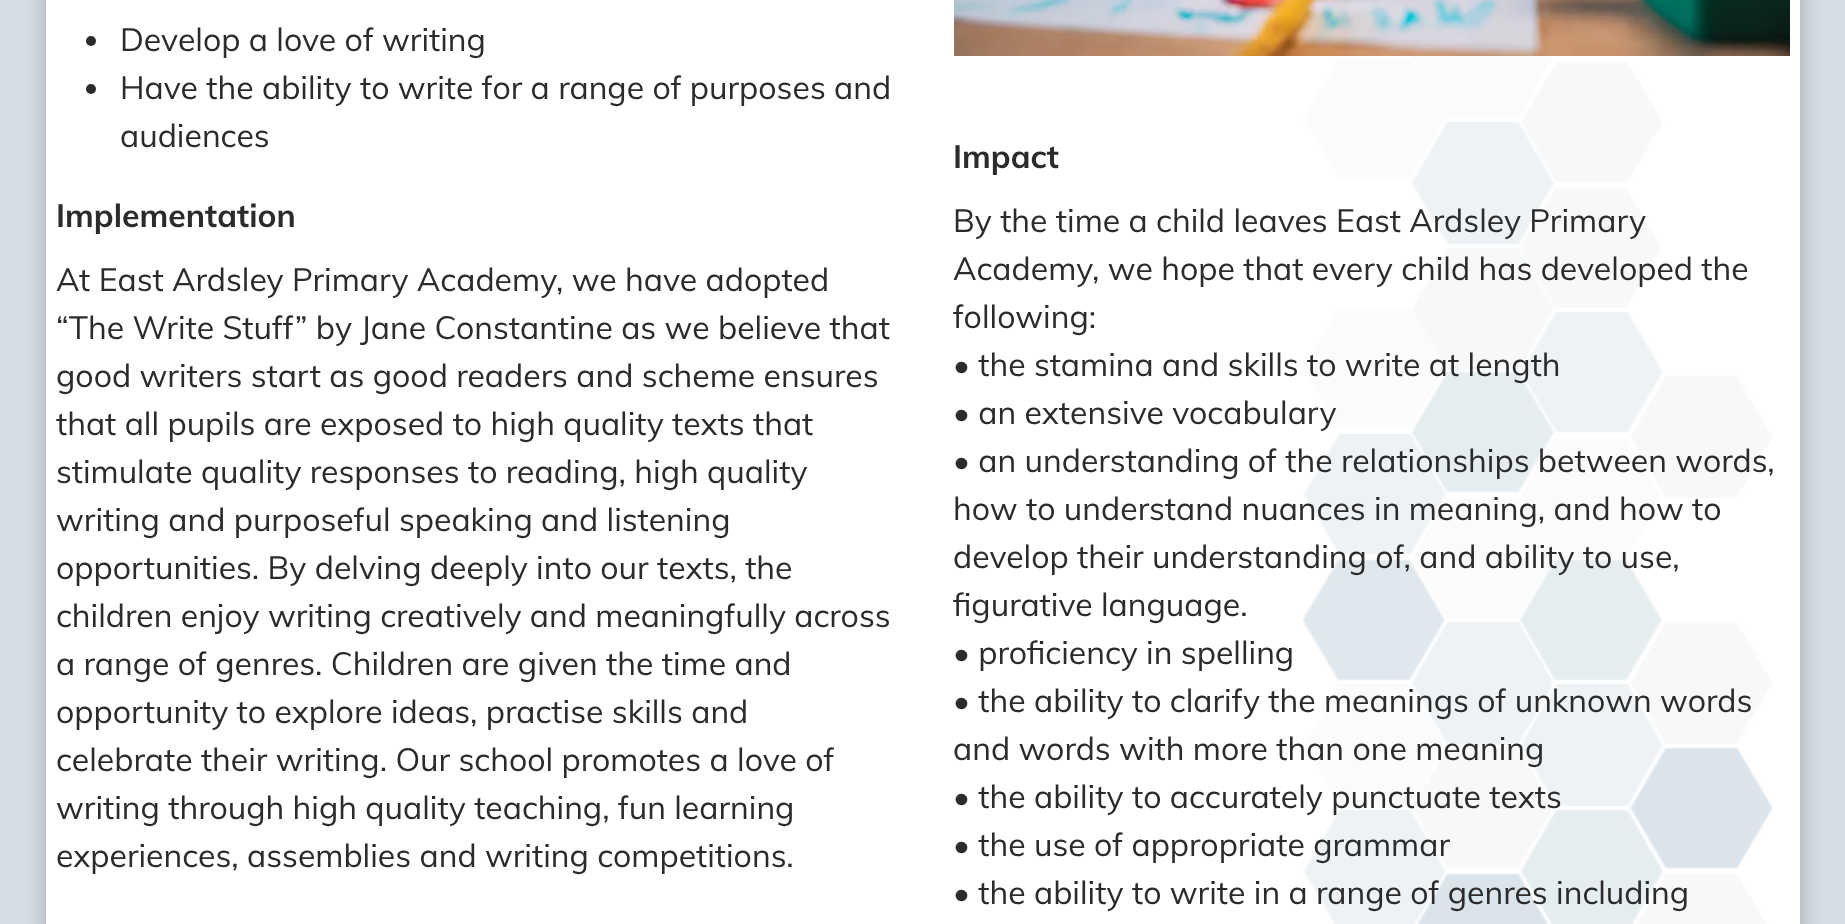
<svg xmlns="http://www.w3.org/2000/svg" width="1845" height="924">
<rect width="100%" height="100%" fill="#d6dde5"/>
<rect x="44" y="-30" width="1758" height="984" fill="#00000033" filter="blur(10px)"/>
<rect x="46" width="1754" height="924" fill="#fff"/>
<image x="1302" y="56" width="471" height="868" href="media/1.png"/>
<circle cx="91" cy="41" r="5" fill="#2b2b2b"/>
<text x="120" y="51" style="font-family:Muli;font-size:32px;fill:#2b2b2b">Develop a love of writing</text>
<circle cx="91" cy="89" r="5" fill="#2b2b2b"/>
<text x="120" y="99" style="font-family:Muli;font-size:32px;fill:#2b2b2b">Have the ability to write for a range of purposes and</text>
<text x="120" y="147" style="font-family:Muli;font-size:32px;fill:#2b2b2b">audiences</text>
<text x="56" y="227" style="font-family:Muli;font-size:32px;font-weight:bold;fill:#2b2b2b">Implementation</text>
<text x="56" y="291" style="font-family:Muli;font-size:32px;fill:#2b2b2b">At East Ardsley Primary Academy, we have adopted</text>
<text x="56" y="339" style="font-family:Muli;font-size:32px;fill:#2b2b2b">“The Write Stuff” by Jane Constantine as we believe that</text>
<text x="56" y="387" style="font-family:Muli;font-size:32px;fill:#2b2b2b">good writers start as good readers and scheme ensures</text>
<text x="56" y="435" style="font-family:Muli;font-size:32px;fill:#2b2b2b">that all pupils are exposed to high quality texts that</text>
<text x="56" y="483" style="font-family:Muli;font-size:32px;fill:#2b2b2b">stimulate quality responses to reading, high quality</text>
<text x="56" y="531" style="font-family:Muli;font-size:32px;fill:#2b2b2b">writing and purposeful speaking and listening</text>
<text x="56" y="579" style="font-family:Muli;font-size:32px;fill:#2b2b2b">opportunities. By delving deeply into our texts, the</text>
<text x="56" y="627" style="font-family:Muli;font-size:32px;fill:#2b2b2b">children enjoy writing creatively and meaningfully across</text>
<text x="56" y="675" style="font-family:Muli;font-size:32px;fill:#2b2b2b">a range of genres. Children are given the time and</text>
<text x="56" y="723" style="font-family:Muli;font-size:32px;fill:#2b2b2b">opportunity to explore ideas, practise skills and</text>
<text x="56" y="771" style="font-family:Muli;font-size:32px;fill:#2b2b2b">celebrate their writing. Our school promotes a love of</text>
<text x="56" y="819" style="font-family:Muli;font-size:32px;fill:#2b2b2b">writing through high quality teaching, fun learning</text>
<text x="56" y="867" style="font-family:Muli;font-size:32px;fill:#2b2b2b">experiences, assemblies and writing competitions.</text>
<image x="954" y="0" width="836" height="56" href="media/2.png"/>
<text x="953" y="168" style="font-family:Muli;font-size:32px;font-weight:bold;fill:#2b2b2b">Impact</text>
<text x="953" y="232" style="font-family:Muli;font-size:32px;fill:#2b2b2b">By the time a child leaves East Ardsley Primary</text>
<text x="953" y="280" style="font-family:Muli;font-size:32px;fill:#2b2b2b">Academy, we hope that every child has developed the</text>
<text x="953" y="328" style="font-family:Muli;font-size:32px;fill:#2b2b2b">following:</text>
<text x="953" y="376" style="font-family:Muli;font-size:32px;fill:#2b2b2b">• the stamina and skills to write at length</text>
<text x="953" y="424" style="font-family:Muli;font-size:32px;fill:#2b2b2b">• an extensive vocabulary</text>
<text x="953" y="472" style="font-family:Muli;font-size:32px;fill:#2b2b2b">• an understanding of the relationships between words,</text>
<text x="953" y="520" style="font-family:Muli;font-size:32px;fill:#2b2b2b">how to understand nuances in meaning, and how to</text>
<text x="953" y="568" style="font-family:Muli;font-size:32px;fill:#2b2b2b">develop their understanding of, and ability to use,</text>
<text x="953" y="616" style="font-family:Muli;font-size:32px;fill:#2b2b2b">figurative language.</text>
<text x="953" y="664" style="font-family:Muli;font-size:32px;fill:#2b2b2b">• proficiency in spelling</text>
<text x="953" y="712" style="font-family:Muli;font-size:32px;fill:#2b2b2b">• the ability to clarify the meanings of unknown words</text>
<text x="953" y="760" style="font-family:Muli;font-size:32px;fill:#2b2b2b">and words with more than one meaning</text>
<text x="953" y="808" style="font-family:Muli;font-size:32px;fill:#2b2b2b">• the ability to accurately punctuate texts</text>
<text x="953" y="856" style="font-family:Muli;font-size:32px;fill:#2b2b2b">• the use of appropriate grammar</text>
<text x="953" y="904" style="font-family:Muli;font-size:32px;fill:#2b2b2b">• the ability to write in a range of genres including</text>
</svg>
